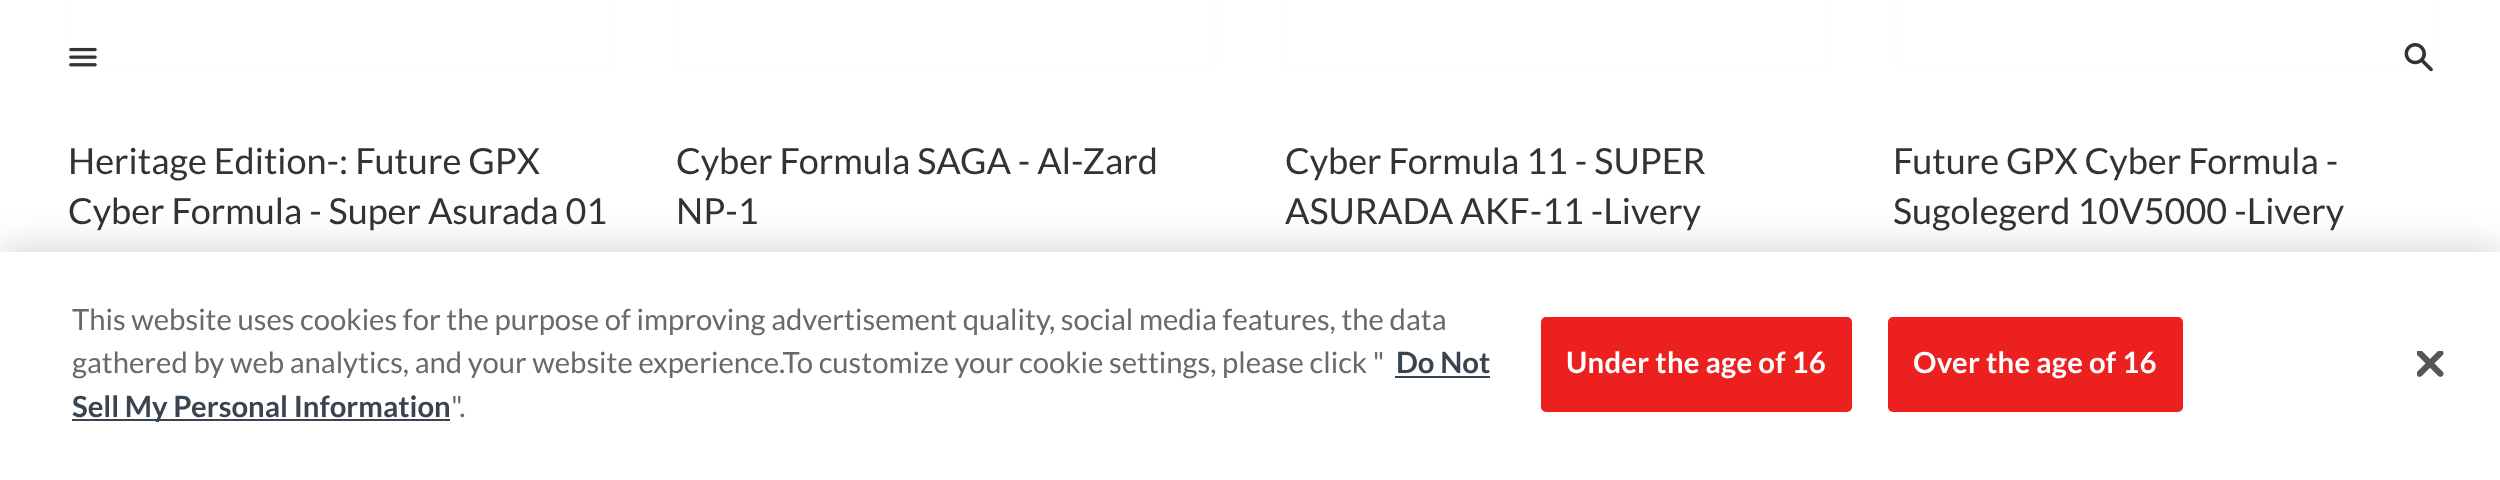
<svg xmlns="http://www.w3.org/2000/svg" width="2500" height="480">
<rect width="100%" height="100%" fill="#fff"/>
<rect x="69" y="-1" width="540" height="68" fill="none" stroke="#e5e5e5" stroke-width="2"/>
<rect x="678" y="-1" width="538" height="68" fill="none" stroke="#e5e5e5" stroke-width="2"/>
<image x="1215" y="0" width="1" height="65" href="media/3.png"/>
<rect x="1286" y="-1" width="540" height="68" fill="none" stroke="#e5e5e5" stroke-width="2"/>
<image x="1286" y="0" width="1" height="65" href="media/3.png"/>
<rect x="1896" y="-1" width="538" height="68" fill="none" stroke="#e5e5e5" stroke-width="2"/>
<image x="1896" y="0" width="1" height="65" href="media/4.png"/>
<rect x="68" width="2367" height="68" fill="#ffffffe6"/>
<image x="69" y="47" width="28" height="20" href="media/1.png"/>
<image x="2404" y="43" width="29" height="29" href="media/2.png"/>
<text x="68" y="174" style="font-family:Lato;font-size:36px;fill:#333">Heritage Edition-: Future GPX</text>
<text x="68" y="224" style="font-family:Lato;font-size:36px;fill:#333">Cyber Formula - Super Asurada 01</text>
<text x="676" y="174" style="font-family:Lato;font-size:36px;fill:#333">Cyber Formula SAGA - Al-Zard</text>
<text x="676" y="224" style="font-family:Lato;font-size:36px;fill:#333">NP-1</text>
<text x="1285" y="174" style="font-family:Lato;font-size:36px;fill:#333">Cyber Formula 11 - SUPER</text>
<text x="1285" y="224" style="font-family:Lato;font-size:36px;fill:#333">ASURADA AKF-11 -Livery</text>
<text x="1893" y="174" style="font-family:Lato;font-size:36px;fill:#333">Future GPX Cyber Formula -</text>
<text x="1893" y="224" style="font-family:Lato;font-size:36px;fill:#333">Sugolegerd 10V5000 -Livery</text>
<rect y="252" width="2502" height="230" fill="#00000033" filter="blur(20px)"/>
<rect y="252" width="2500" height="228" fill="#fff"/>
<text x="72" y="330" style="font-family:Lato;font-size:29.25px;fill:#696969">This website uses cookies for the purpose of improving advertisement quality, social media features, the data</text>
<text x="72" y="373" style="font-family:Lato;font-size:29.25px;fill:#696969">gathered by web analytics, and your website experience.To customize your cookie settings, please click "</text>
<text x="1396" y="373" style="font-family:Lato;font-size:29.25px;font-weight:bold;fill:#384450">Do Not</text>
<rect x="1395" y="376" width="95" height="2" fill="#384450"/>
<rect x="72" y="419" width="378" height="2" fill="#384450"/>
<text x="72" y="417" style="font-family:Lato;font-size:29.25px;font-weight:bold;fill:#384450">Sell My Personal Information</text>
<text x="451" y="417" style="font-family:Lato;font-size:29.25px;fill:#696969">".</text>
<rect x="1542" y="318" width="309" height="93" rx="4" fill="#ed2020" stroke="#ed2020" stroke-width="2"/>
<text x="1566" y="373" style="font-family:Lato;font-size:29.25px;font-weight:bold;letter-spacing:0.25px;fill:#fff">Under the age of 16</text>
<rect x="1889" y="318" width="293" height="93" rx="4" fill="#ed2020" stroke="#ed2020" stroke-width="2"/>
<text x="1913" y="373" style="font-family:Lato;font-size:29.25px;font-weight:bold;letter-spacing:0.25px;fill:#fff">Over the age of 16</text>
<image x="2417" y="351" width="27" height="26" href="media/5.png"/>
</svg>
